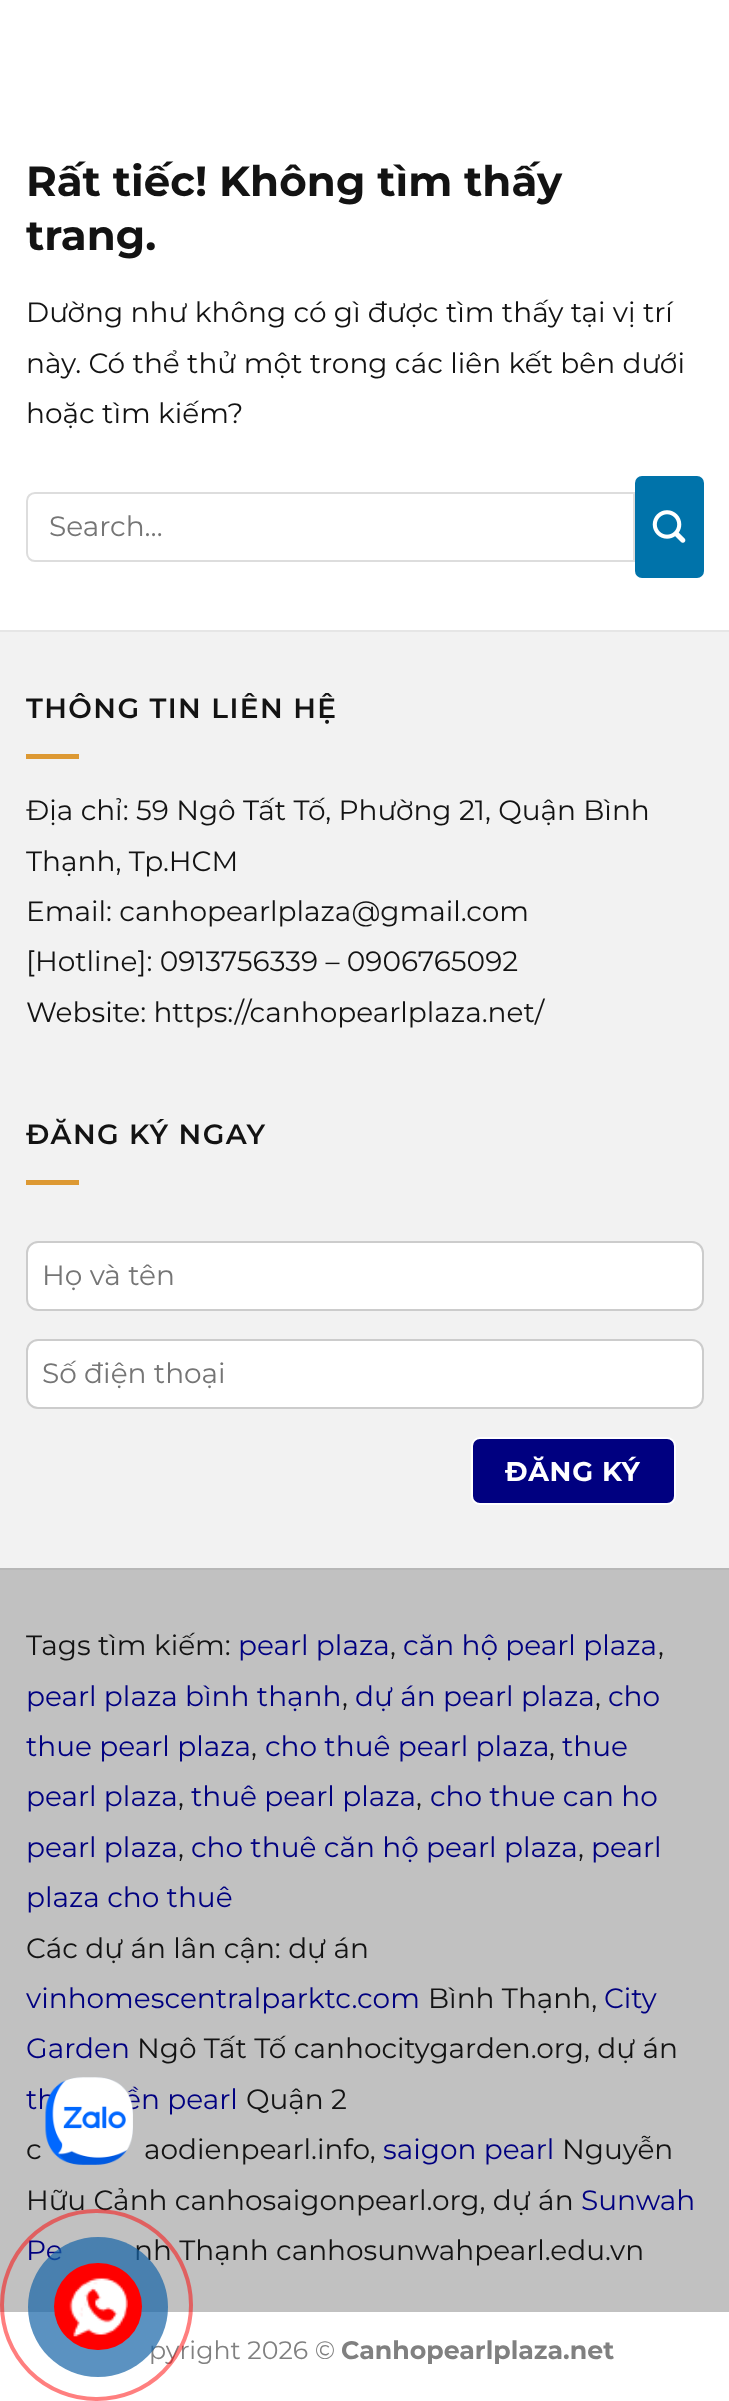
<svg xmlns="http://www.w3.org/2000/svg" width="729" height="2401">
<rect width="100%" height="100%" fill="#fff"/>
<text x="26" y="196" style="font-family:Montserrat;font-size:42px;font-weight:bold;fill:#131313">Rất tiếc! Không tìm thấy</text>
<text x="26" y="250" style="font-family:Montserrat;font-size:42px;font-weight:bold;fill:#131313">trang.</text>
<text x="26" y="322" style="font-family:Montserrat;font-size:28px;fill:#131313">Dường như không có gì được tìm thấy tại vị trí</text>
<text x="26" y="373" style="font-family:Montserrat;font-size:28px;fill:#131313">này. Có thể thử một trong các liên kết bên dưới</text>
<text x="26" y="423" style="font-family:Montserrat;font-size:28px;fill:#131313">hoặc tìm kiếm?</text>
<path d="M35 493h599v68h-599c-4.5 0-8-3.5-8-8v-52c0-4.5 3.5-8 8-8z" fill="none" stroke="#ddd" stroke-width="2"/>
<text x="49" y="536" style="font-family:Montserrat;font-size:28px;fill:#757575">Search…</text>
<rect x="635" y="476" width="69" height="102" rx="7" fill="#0073aa"/>
<image x="652" y="510" width="34" height="33" href="media/1.png"/>
<rect y="632" width="729" height="936" fill="#f2f2f2"/>
<rect y="630" width="729" height="2" fill="#e6e6e6"/>
<text x="26" y="718" style="font-family:Montserrat;font-size:28px;font-weight:600;letter-spacing:1.4px;fill:#131313">THÔNG TIN LIÊN HỆ</text>
<rect x="26" y="754" width="53" height="5" fill="#d93"/>
<text x="26" y="820" style="font-family:Montserrat;font-size:28px;fill:#131313">Địa chỉ: 59 Ngô Tất Tố, Phường 21, Quận Bình</text>
<text x="26" y="871" style="font-family:Montserrat;font-size:28px;fill:#131313">Thạnh, Tp.HCM</text>
<text x="26" y="921" style="font-family:Montserrat;font-size:28px;fill:#131313">Email: canhopearlplaza@gmail.com</text>
<text x="26" y="971" style="font-family:Montserrat;font-size:28px;fill:#131313">[Hotline]: 0913756339 – 0906765092</text>
<text x="26" y="1022" style="font-family:Montserrat;font-size:28px;fill:#131313">Website: https://canhopearlplaza.net/</text>
<text x="26" y="1144" style="font-family:Montserrat;font-size:28px;font-weight:600;letter-spacing:1.4px;fill:#131313">ĐĂNG KÝ NGAY</text>
<rect x="26" y="1180" width="53" height="5" fill="#d93"/>
<rect x="27" y="1242" width="676" height="68" rx="11" fill="#fff" stroke="#ccc" stroke-width="2"/>
<text x="42" y="1285" style="font-family:Montserrat;font-size:28px;fill:#757575">Họ và tên</text>
<rect x="27" y="1340" width="676" height="68" rx="11" fill="#fff" stroke="#ccc" stroke-width="2"/>
<text x="42" y="1383" style="font-family:Montserrat;font-size:28px;fill:#757575">Số điện thoại</text>
<rect x="472" y="1438" width="203" height="66" rx="8" fill="#000080" stroke="#fff" stroke-width="2"/>
<text x="505" y="1481" style="font-family:Montserrat;font-size:27px;font-weight:bold;letter-spacing:0.75px;fill:#fff">ĐĂNG KÝ</text>
<rect y="1570" width="729" height="742" fill="#c1c1c1"/>
<rect y="1568" width="729" height="2" fill="#b7b7b7"/>
<text x="26" y="1655" style="font-family:Montserrat;font-size:28px;fill:#131313">Tags tìm kiếm:</text>
<text x="238" y="1655" style="font-family:Montserrat;font-size:28px;fill:#000080">pearl plaza</text>
<text x="390" y="1655" style="font-family:Montserrat;font-size:28px;fill:#131313">,</text>
<text x="403" y="1655" style="font-family:Montserrat;font-size:28px;fill:#000080">căn hộ pearl plaza</text>
<text x="658" y="1655" style="font-family:Montserrat;font-size:28px;fill:#131313">,</text>
<text x="26" y="1706" style="font-family:Montserrat;font-size:28px;fill:#000080">pearl plaza bình thạnh</text>
<text x="342" y="1706" style="font-family:Montserrat;font-size:28px;fill:#131313">,</text>
<text x="355" y="1706" style="font-family:Montserrat;font-size:28px;fill:#000080">dự án pearl plaza</text>
<text x="595" y="1706" style="font-family:Montserrat;font-size:28px;fill:#131313">,</text>
<text x="608" y="1706" style="font-family:Montserrat;font-size:28px;fill:#000080">cho</text>
<text x="26" y="1756" style="font-family:Montserrat;font-size:28px;fill:#000080">thue pearl plaza</text>
<text x="251" y="1756" style="font-family:Montserrat;font-size:28px;fill:#131313">,</text>
<text x="265" y="1756" style="font-family:Montserrat;font-size:28px;fill:#000080">cho thuê pearl plaza</text>
<text x="549" y="1756" style="font-family:Montserrat;font-size:28px;fill:#131313">,</text>
<text x="562" y="1756" style="font-family:Montserrat;font-size:28px;fill:#000080">thue</text>
<text x="26" y="1806" style="font-family:Montserrat;font-size:28px;fill:#000080">pearl plaza</text>
<text x="178" y="1806" style="font-family:Montserrat;font-size:28px;fill:#131313">,</text>
<text x="191" y="1806" style="font-family:Montserrat;font-size:28px;fill:#000080">thuê pearl plaza</text>
<text x="416" y="1806" style="font-family:Montserrat;font-size:28px;fill:#131313">,</text>
<text x="430" y="1806" style="font-family:Montserrat;font-size:28px;fill:#000080">cho thue can ho</text>
<text x="26" y="1857" style="font-family:Montserrat;font-size:28px;fill:#000080">pearl plaza</text>
<text x="178" y="1857" style="font-family:Montserrat;font-size:28px;fill:#131313">,</text>
<text x="191" y="1857" style="font-family:Montserrat;font-size:28px;fill:#000080">cho thuê căn hộ pearl plaza</text>
<text x="578" y="1857" style="font-family:Montserrat;font-size:28px;fill:#131313">,</text>
<text x="591" y="1857" style="font-family:Montserrat;font-size:28px;fill:#000080">pearl</text>
<text x="26" y="1907" style="font-family:Montserrat;font-size:28px;fill:#000080">plaza cho thuê</text>
<text x="26" y="1958" style="font-family:Montserrat;font-size:28px;fill:#131313">Các dự án lân cận: dự án</text>
<text x="26" y="2008" style="font-family:Montserrat;font-size:28px;fill:#000080">vinhomescentralparktc.com</text>
<text x="428" y="2008" style="font-family:Montserrat;font-size:28px;fill:#131313">Bình Thạnh,</text>
<text x="604" y="2008" style="font-family:Montserrat;font-size:28px;fill:#000080">City</text>
<text x="26" y="2058" style="font-family:Montserrat;font-size:28px;fill:#000080">Garden</text>
<text x="137" y="2058" style="font-family:Montserrat;font-size:28px;fill:#131313">Ngô Tất Tố canhocitygarden.org, dự án</text>
<text x="26" y="2109" style="font-family:Montserrat;font-size:28px;fill:#000080">th</text>
<text x="124" y="2109" style="font-family:Montserrat;font-size:28px;fill:#000080">ền pearl</text>
<text x="246" y="2109" style="font-family:Montserrat;font-size:28px;fill:#131313">Quận 2</text>
<text x="26" y="2159" style="font-family:Montserrat;font-size:28px;fill:#131313">c</text>
<text x="144" y="2159" style="font-family:Montserrat;font-size:28px;fill:#131313">aodienpearl.info,</text>
<text x="383" y="2159" style="font-family:Montserrat;font-size:28px;fill:#000080">saigon pearl</text>
<text x="562" y="2159" style="font-family:Montserrat;font-size:28px;fill:#131313">Nguyễn</text>
<text x="26" y="2210" style="font-family:Montserrat;font-size:28px;fill:#131313">Hữu Cảnh canhosaigonpearl.org, dự án</text>
<text x="581" y="2210" style="font-family:Montserrat;font-size:28px;fill:#000080">Sunwah</text>
<text x="26" y="2260" style="font-family:Montserrat;font-size:28px;fill:#000080">Pe</text>
<text x="134" y="2260" style="font-family:Montserrat;font-size:28px;fill:#131313">nh Thạnh canhosunwahpearl.edu.vn</text>
<text x="149" y="2359" style="font-family:Montserrat;font-size:25.25px;fill:#808080">pyright 2026 ©</text>
<text x="341" y="2359" style="font-family:Montserrat;font-size:25.25px;font-weight:bold;fill:#808080">Canhopearlplaza.net</text>
<image x="45" y="2077" width="88" height="88" href="media/2.png"/>
<rect x="2" y="2211" width="189" height="188" rx="94" fill="none" stroke="#ff000080" stroke-width="4"/>
<circle cx="98" cy="2307" r="70" fill="#1564a7b3"/>
<rect x="54" y="2263" width="88" height="87" rx="43.5" fill="#f00"/>
<image x="69" y="2277" width="59" height="60" href="media/3.png"/>
</svg>
